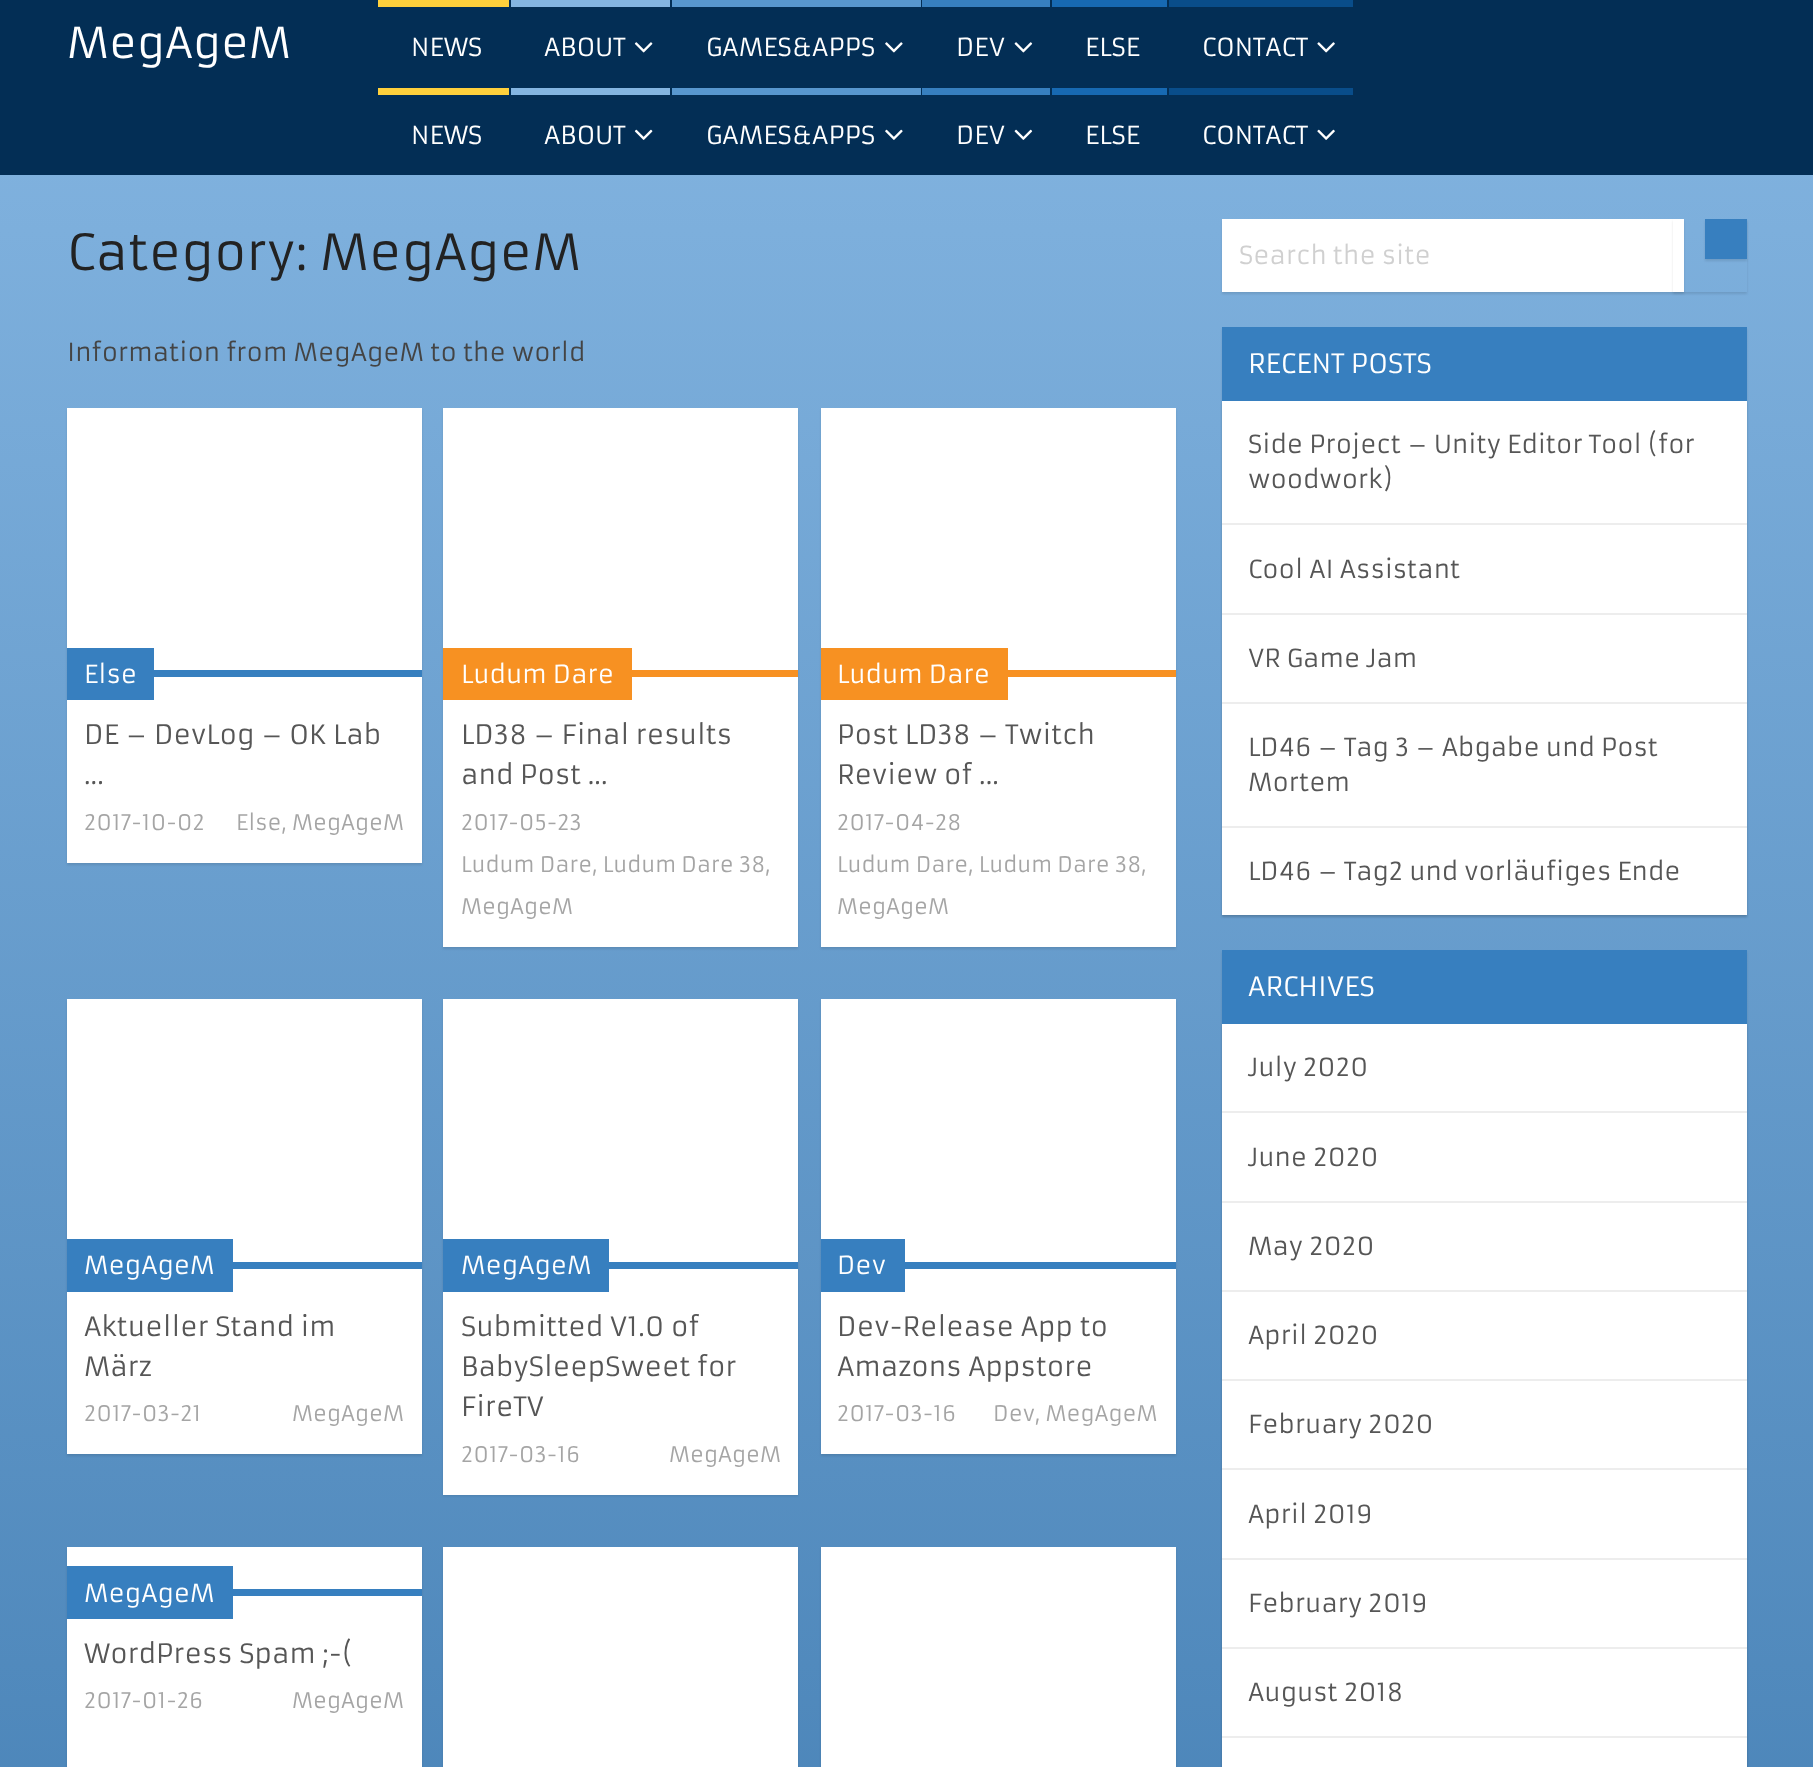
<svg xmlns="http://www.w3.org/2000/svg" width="1813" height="1767">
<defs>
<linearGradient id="g1" gradientUnits="userSpaceOnUse" x1="906" y1="0" x2="907" y2="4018"><stop offset="0" stop-color="#84b5e1"/><stop offset="1" stop-color="#094d8a"/></linearGradient>
<clipPath id="clip1"><path d="M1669 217h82v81h-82zm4 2h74v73h-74z" clip-rule="evenodd"/></clipPath>
</defs>
<rect width="100%" height="100%" fill="#fff"/>
<rect y="175" width="1813" height="1592" fill="url(#g1)"/>
<rect width="1813" height="175" fill="#032e55"/>
<text x="67" y="58" style="font-family:Armata;font-size:42px;fill:#fff">MegAgeM</text>
<rect x="378" width="131" height="7" fill="#ffd03c"/>
<text x="411" y="56" style="font-family:Armata;font-size:24.5px;fill:#fff">NEWS</text>
<rect x="511" width="159" height="7" fill="#84b5e1"/>
<text x="544" y="56" style="font-family:Armata;font-size:24.5px;fill:#fff">ABOUT</text>
<image x="634" y="42" width="19" height="11" href="media/1.png"/>
<rect x="672" width="249" height="7" fill="#5897cf"/>
<text x="706" y="56" style="font-family:Armata;font-size:24.5px;fill:#fff">GAMES&amp;APPS</text>
<image x="885" y="42" width="18" height="11" href="media/2.png"/>
<rect x="922" width="128" height="7" fill="#377fbf"/>
<text x="956" y="56" style="font-family:Armata;font-size:24.5px;fill:#fff">DEV</text>
<image x="1014" y="42" width="19" height="11" href="media/3.png"/>
<rect x="1052" width="115" height="7" fill="#1769b2"/>
<text x="1085" y="56" style="font-family:Armata;font-size:24.5px;fill:#fff">ELSE</text>
<rect x="1169" width="184" height="7" fill="#094d8a"/>
<text x="1202" y="56" style="font-family:Armata;font-size:24.5px;fill:#fff">CONTACT</text>
<image x="1317" y="42" width="18" height="11" href="media/4.png"/>
<rect x="378" y="88" width="131" height="7" fill="#ffd03c"/>
<text x="411" y="144" style="font-family:Armata;font-size:24.5px;fill:#fff">NEWS</text>
<rect x="511" y="88" width="159" height="7" fill="#84b5e1"/>
<text x="544" y="144" style="font-family:Armata;font-size:24.5px;fill:#fff">ABOUT</text>
<image x="634" y="129" width="19" height="11" href="media/5.png"/>
<rect x="672" y="88" width="249" height="7" fill="#5897cf"/>
<text x="706" y="144" style="font-family:Armata;font-size:24.5px;fill:#fff">GAMES&amp;APPS</text>
<image x="885" y="129" width="18" height="11" href="media/6.png"/>
<rect x="922" y="88" width="128" height="7" fill="#377fbf"/>
<text x="956" y="144" style="font-family:Armata;font-size:24.5px;fill:#fff">DEV</text>
<image x="1014" y="129" width="19" height="11" href="media/7.png"/>
<rect x="1052" y="88" width="115" height="7" fill="#1769b2"/>
<text x="1085" y="144" style="font-family:Armata;font-size:24.5px;fill:#fff">ELSE</text>
<rect x="1169" y="88" width="184" height="7" fill="#094d8a"/>
<text x="1202" y="144" style="font-family:Armata;font-size:24.5px;fill:#fff">CONTACT</text>
<image x="1317" y="129" width="18" height="11" href="media/8.png"/>
<text x="67" y="270" style="font-family:Armata;font-size:49px;fill:#222">Category: MegAgeM</text>
<text x="67" y="361" style="font-family:Armata;font-size:24.5px;fill:#444">Information from MegAgeM to the world</text>
<rect x="67" y="410" width="355" height="455" fill="#0000001a" filter="blur(1px)"/>
<rect x="67" y="408" width="355" height="455" fill="#fff"/>
<rect x="67" y="648" width="87" height="52" fill="#377fbf"/>
<text x="84" y="683" style="font-family:Armata;font-size:24.5px;fill:#fff">Else</text>
<rect x="154" y="670" width="268" height="7" fill="#377fbf"/>
<text x="84" y="744" style="font-family:Armata;font-size:26.25px;fill:#565656">DE – DevLog – OK Lab</text>
<text x="84" y="784" style="font-family:Armata;font-size:26.25px;fill:#565656">...</text>
<text x="84" y="830" style="font-family:Armata;font-size:21px;fill:#a5a5a5">2017-10-02</text>
<text x="236" y="830" style="font-family:Armata;font-size:21px;fill:#a5a5a5">Else, MegAgeM</text>
<rect x="443" y="410" width="355" height="539" fill="#0000001a" filter="blur(1px)"/>
<rect x="443" y="408" width="355" height="539" fill="#fff"/>
<rect x="443" y="648" width="189" height="52" fill="#f79122"/>
<text x="461" y="683" style="font-family:Armata;font-size:24.5px;fill:#fff">Ludum Dare</text>
<rect x="632" y="670" width="166" height="7" fill="#f79122"/>
<text x="461" y="744" style="font-family:Armata;font-size:26.25px;fill:#565656">LD38 – Final results</text>
<text x="461" y="784" style="font-family:Armata;font-size:26.25px;fill:#565656">and Post ...</text>
<text x="461" y="830" style="font-family:Armata;font-size:21px;fill:#a5a5a5">2017-05-23</text>
<text x="461" y="872" style="font-family:Armata;font-size:21px;fill:#a5a5a5">Ludum Dare, Ludum Dare 38,</text>
<text x="461" y="914" style="font-family:Armata;font-size:21px;fill:#a5a5a5">MegAgeM</text>
<rect x="821" y="410" width="355" height="539" fill="#0000001a" filter="blur(1px)"/>
<rect x="821" y="408" width="355" height="539" fill="#fff"/>
<rect x="821" y="648" width="187" height="52" fill="#f79122"/>
<text x="837" y="683" style="font-family:Armata;font-size:24.5px;fill:#fff">Ludum Dare</text>
<rect x="1008" y="670" width="168" height="7" fill="#f79122"/>
<text x="837" y="744" style="font-family:Armata;font-size:26.25px;fill:#565656">Post LD38 – Twitch</text>
<text x="837" y="784" style="font-family:Armata;font-size:26.25px;fill:#565656">Review of ...</text>
<text x="837" y="830" style="font-family:Armata;font-size:21px;fill:#a5a5a5">2017-04-28</text>
<text x="837" y="872" style="font-family:Armata;font-size:21px;fill:#a5a5a5">Ludum Dare, Ludum Dare 38,</text>
<text x="837" y="914" style="font-family:Armata;font-size:21px;fill:#a5a5a5">MegAgeM</text>
<rect x="67" y="1001" width="355" height="455" fill="#0000001a" filter="blur(1px)"/>
<rect x="67" y="999" width="355" height="455" fill="#fff"/>
<rect x="67" y="1239" width="166" height="53" fill="#377fbf"/>
<text x="84" y="1274" style="font-family:Armata;font-size:24.5px;fill:#fff">MegAgeM</text>
<rect x="233" y="1262" width="189" height="7" fill="#377fbf"/>
<text x="84" y="1336" style="font-family:Armata;font-size:26.25px;fill:#565656">Aktueller Stand im</text>
<text x="84" y="1376" style="font-family:Armata;font-size:26.25px;fill:#565656">März</text>
<text x="84" y="1421" style="font-family:Armata;font-size:21px;fill:#a5a5a5">2017-03-21</text>
<text x="292" y="1421" style="font-family:Armata;font-size:21px;fill:#a5a5a5">MegAgeM</text>
<rect x="443" y="1001" width="355" height="495" fill="#0000001a" filter="blur(1px)"/>
<rect x="443" y="999" width="355" height="496" fill="#fff"/>
<rect x="443" y="1239" width="166" height="53" fill="#377fbf"/>
<text x="461" y="1274" style="font-family:Armata;font-size:24.5px;fill:#fff">MegAgeM</text>
<rect x="609" y="1262" width="189" height="7" fill="#377fbf"/>
<text x="461" y="1336" style="font-family:Armata;font-size:26.25px;fill:#565656">Submitted V1.0 of</text>
<text x="461" y="1376" style="font-family:Armata;font-size:26.25px;fill:#565656">BabySleepSweet for</text>
<text x="461" y="1416" style="font-family:Armata;font-size:26.25px;fill:#565656">FireTV</text>
<text x="461" y="1462" style="font-family:Armata;font-size:21px;fill:#a5a5a5">2017-03-16</text>
<text x="669" y="1462" style="font-family:Armata;font-size:21px;fill:#a5a5a5">MegAgeM</text>
<rect x="821" y="1001" width="355" height="455" fill="#0000001a" filter="blur(1px)"/>
<rect x="821" y="999" width="355" height="455" fill="#fff"/>
<rect x="821" y="1239" width="84" height="53" fill="#377fbf"/>
<text x="837" y="1274" style="font-family:Armata;font-size:24.5px;fill:#fff">Dev</text>
<rect x="905" y="1262" width="271" height="7" fill="#377fbf"/>
<text x="837" y="1336" style="font-family:Armata;font-size:26.25px;fill:#565656">Dev-Release App to</text>
<text x="837" y="1376" style="font-family:Armata;font-size:26.25px;fill:#565656">Amazons Appstore</text>
<text x="837" y="1421" style="font-family:Armata;font-size:21px;fill:#a5a5a5">2017-03-16</text>
<text x="993" y="1421" style="font-family:Armata;font-size:21px;fill:#a5a5a5">Dev, MegAgeM</text>
<rect x="67" y="1549" width="355" height="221" fill="#0000001a" filter="blur(1px)"/>
<rect x="67" y="1547" width="355" height="220" fill="#fff"/>
<rect x="67" y="1566" width="166" height="53" fill="#377fbf"/>
<text x="84" y="1602" style="font-family:Armata;font-size:24.5px;fill:#fff">MegAgeM</text>
<rect x="233" y="1589" width="189" height="7" fill="#377fbf"/>
<text x="84" y="1663" style="font-family:Armata;font-size:26.25px;fill:#565656">WordPress Spam ;-(</text>
<text x="84" y="1708" style="font-family:Armata;font-size:21px;fill:#a5a5a5">2017-01-26</text>
<text x="292" y="1708" style="font-family:Armata;font-size:21px;fill:#a5a5a5">MegAgeM</text>
<rect x="443" y="1549" width="355" height="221" fill="#0000001a" filter="blur(1px)"/>
<rect x="443" y="1547" width="355" height="220" fill="#fff"/>
<rect x="821" y="1549" width="355" height="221" fill="#0000001a" filter="blur(1px)"/>
<rect x="821" y="1547" width="355" height="220" fill="#fff"/>
<rect x="1222" y="221" width="462" height="73" fill="#0000001a" filter="blur(1px)"/>
<rect x="1222" y="219" width="462" height="73" fill="#fff"/>
<rect x="1705" y="221" width="42" height="40" fill="#0000001a" filter="blur(1px)"/>
<rect x="1705" y="219" width="42" height="40" fill="#377fbf"/>
<g clip-path="url(#clip1)">
<rect x="1673" y="221" width="74" height="73" fill="#0000001a" filter="blur(1px)"/>
</g>
<text x="1239" y="264" style="font-family:Armata;font-size:24.5px;fill:#d0d0d0">Search the site</text>
<rect x="1222" y="329" width="525" height="588" fill="#0000001a" filter="blur(1px)"/>
<rect x="1222" y="327" width="525" height="74" fill="#377fbf"/>
<text x="1248" y="373" style="font-family:Armata;font-size:26.25px;fill:#fff">RECENT POSTS</text>
<rect x="1222" y="403" width="525" height="514" fill="#0000001a" filter="blur(1px)"/>
<rect x="1222" y="401" width="525" height="514" fill="#fff"/>
<rect x="1222" y="523" width="525" height="2" fill="#ededed"/>
<text x="1248" y="453" style="font-family:Armata;font-size:24.5px;fill:#565656">Side Project – Unity Editor Tool (for</text>
<text x="1248" y="488" style="font-family:Armata;font-size:24.5px;fill:#565656">woodwork)</text>
<rect x="1222" y="613" width="525" height="2" fill="#ededed"/>
<text x="1248" y="578" style="font-family:Armata;font-size:24.5px;fill:#565656">Cool AI Assistant</text>
<rect x="1222" y="702" width="525" height="2" fill="#ededed"/>
<text x="1248" y="667" style="font-family:Armata;font-size:24.5px;fill:#565656">VR Game Jam</text>
<rect x="1222" y="826" width="525" height="2" fill="#ededed"/>
<text x="1248" y="756" style="font-family:Armata;font-size:24.5px;fill:#565656">LD46 – Tag 3 – Abgabe und Post</text>
<text x="1248" y="791" style="font-family:Armata;font-size:24.5px;fill:#565656">Mortem</text>
<text x="1248" y="880" style="font-family:Armata;font-size:24.5px;fill:#565656">LD46 – Tag2 und vorläufiges Ende</text>
<rect x="1222" y="952" width="525" height="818" fill="#0000001a" filter="blur(1px)"/>
<rect x="1222" y="950" width="525" height="74" fill="#377fbf"/>
<text x="1248" y="996" style="font-family:Armata;font-size:26.25px;fill:#fff">ARCHIVES</text>
<rect x="1222" y="1026" width="525" height="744" fill="#0000001a" filter="blur(1px)"/>
<rect x="1222" y="1024" width="525" height="743" fill="#fff"/>
<rect x="1222" y="1111" width="525" height="2" fill="#ededed"/>
<text x="1248" y="1076" style="font-family:Armata;font-size:24.5px;fill:#565656">July 2020</text>
<rect x="1222" y="1201" width="525" height="2" fill="#ededed"/>
<text x="1248" y="1166" style="font-family:Armata;font-size:24.5px;fill:#565656">June 2020</text>
<rect x="1222" y="1290" width="525" height="2" fill="#ededed"/>
<text x="1248" y="1255" style="font-family:Armata;font-size:24.5px;fill:#565656">May 2020</text>
<rect x="1222" y="1379" width="525" height="2" fill="#ededed"/>
<text x="1248" y="1344" style="font-family:Armata;font-size:24.5px;fill:#565656">April 2020</text>
<rect x="1222" y="1468" width="525" height="2" fill="#ededed"/>
<text x="1248" y="1433" style="font-family:Armata;font-size:24.5px;fill:#565656">February 2020</text>
<rect x="1222" y="1558" width="525" height="2" fill="#ededed"/>
<text x="1248" y="1523" style="font-family:Armata;font-size:24.5px;fill:#565656">April 2019</text>
<rect x="1222" y="1647" width="525" height="2" fill="#ededed"/>
<text x="1248" y="1612" style="font-family:Armata;font-size:24.5px;fill:#565656">February 2019</text>
<rect x="1222" y="1736" width="525" height="2" fill="#ededed"/>
<text x="1248" y="1701" style="font-family:Armata;font-size:24.5px;fill:#565656">August 2018</text>
</svg>
